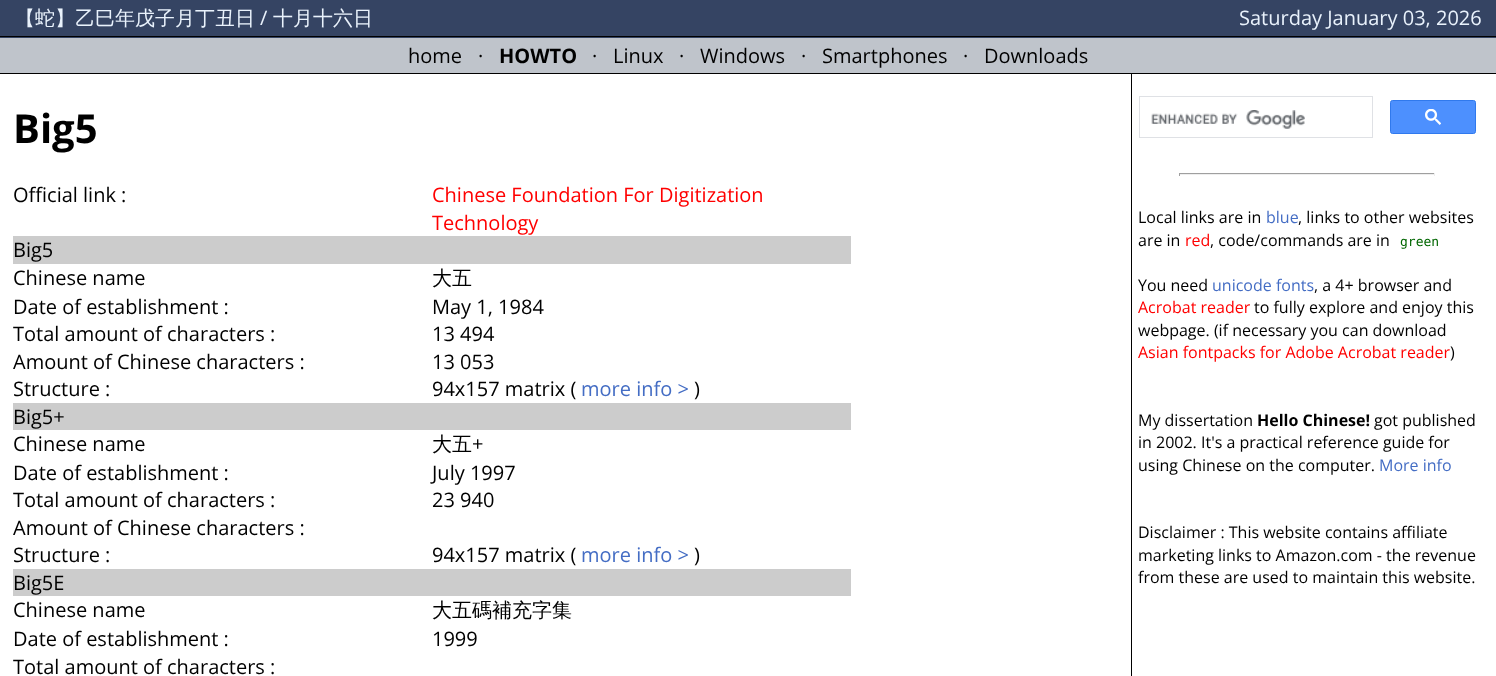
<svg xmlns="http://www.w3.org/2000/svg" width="1496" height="676">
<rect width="100%" height="100%" fill="#fff"/>
<rect width="1496" height="38" fill="#354463"/>
<rect y="36" width="1496" height="1" fill="#000"/>
<text x="15" y="25" style="font-family:WenQuanYi Zen Hei;font-size:20px;font-weight:500;fill:#e9f2fc">【蛇】乙巳年戊子月丁丑日</text>
<text x="260" y="25" style="font-family:Open Sans;font-size:20px;fill:#e9f2fc">/</text>
<text x="273" y="25" style="font-family:WenQuanYi Zen Hei;font-size:20px;font-weight:500;fill:#e9f2fc">十月十六日</text>
<text x="1239" y="25" style="font-family:Open Sans;font-size:20px;fill:#e9f2fc">Saturday January 03, 2026</text>
<rect y="38" width="1496" height="35" fill="#bfc4cb"/>
<rect y="73" width="1496" height="1" fill="#000"/>
<text x="408" y="63" style="font-family:Open Sans;font-size:20px;fill:#000">home</text>
<text x="478" y="63" style="font-family:Open Sans;font-size:20px;fill:#000">·</text>
<text x="499" y="63" style="font-family:Open Sans;font-size:20px;font-weight:bold;fill:#000">HOWTO</text>
<text x="592" y="63" style="font-family:Open Sans;font-size:20px;fill:#000">·</text>
<text x="613" y="63" style="font-family:Open Sans;font-size:20px;fill:#000">Linux</text>
<text x="679" y="63" style="font-family:Open Sans;font-size:20px;fill:#000">·</text>
<text x="700" y="63" style="font-family:Open Sans;font-size:20px;fill:#000">Windows</text>
<text x="801" y="63" style="font-family:Open Sans;font-size:20px;fill:#000">·</text>
<text x="822" y="63" style="font-family:Open Sans;font-size:20px;fill:#000">Smartphones</text>
<text x="963" y="63" style="font-family:Open Sans;font-size:20px;fill:#000">·</text>
<text x="984" y="63" style="font-family:Open Sans;font-size:20px;fill:#000">Downloads</text>
<text x="13" y="143" style="font-family:Open Sans;font-size:40px;font-weight:bold;fill:#000">Big5</text>
<text x="13" y="202" style="font-family:Open Sans;font-size:20px;fill:#000">Official link :</text>
<text x="432" y="202" style="font-family:Open Sans;font-size:20px;fill:#f00">Chinese Foundation For Digitization</text>
<text x="432" y="230" style="font-family:Open Sans;font-size:20px;fill:#f00">Technology</text>
<rect x="13" y="236" width="838" height="28" fill="#ccc"/>
<text x="13" y="257" style="font-family:Open Sans;font-size:20px;fill:#000">Big5</text>
<text x="13" y="285" style="font-family:Open Sans;font-size:20px;fill:#000">Chinese name</text>
<text x="432" y="285" style="font-family:WenQuanYi Zen Hei;font-size:20px;font-weight:500;fill:#000">大五</text>
<text x="13" y="314" style="font-family:Open Sans;font-size:20px;fill:#000">Date of establishment :</text>
<text x="432" y="314" style="font-family:Open Sans;font-size:20px;fill:#000">May 1, 1984</text>
<text x="13" y="341" style="font-family:Open Sans;font-size:20px;fill:#000">Total amount of characters :</text>
<text x="432" y="341" style="font-family:Open Sans;font-size:20px;fill:#000">13 494</text>
<text x="13" y="369" style="font-family:Open Sans;font-size:20px;fill:#000">Amount of Chinese characters :</text>
<text x="432" y="369" style="font-family:Open Sans;font-size:20px;fill:#000">13 053</text>
<text x="13" y="396" style="font-family:Open Sans;font-size:20px;fill:#000">Structure :</text>
<text x="432" y="396" style="font-family:Open Sans;font-size:20px;fill:#000">94x157 matrix (</text>
<text x="581" y="396" style="font-family:Open Sans;font-size:20px;fill:#446dc4">more info &gt;</text>
<text x="694" y="396" style="font-family:Open Sans;font-size:20px;fill:#000">)</text>
<rect x="13" y="403" width="838" height="27" fill="#ccc"/>
<text x="13" y="424" style="font-family:Open Sans;font-size:20px;fill:#000">Big5+</text>
<text x="13" y="451" style="font-family:Open Sans;font-size:20px;fill:#000">Chinese name</text>
<text x="432" y="451" style="font-family:WenQuanYi Zen Hei;font-size:20px;font-weight:500;fill:#000">大五</text>
<text x="472" y="451" style="font-family:Open Sans;font-size:20px;fill:#000">+</text>
<text x="13" y="480" style="font-family:Open Sans;font-size:20px;fill:#000">Date of establishment :</text>
<text x="432" y="480" style="font-family:Open Sans;font-size:20px;fill:#000">July 1997</text>
<text x="13" y="507" style="font-family:Open Sans;font-size:20px;fill:#000">Total amount of characters :</text>
<text x="432" y="507" style="font-family:Open Sans;font-size:20px;fill:#000">23 940</text>
<text x="13" y="535" style="font-family:Open Sans;font-size:20px;fill:#000">Amount of Chinese characters :</text>
<text x="13" y="562" style="font-family:Open Sans;font-size:20px;fill:#000">Structure :</text>
<text x="432" y="562" style="font-family:Open Sans;font-size:20px;fill:#000">94x157 matrix (</text>
<text x="581" y="562" style="font-family:Open Sans;font-size:20px;fill:#446dc4">more info &gt;</text>
<text x="694" y="562" style="font-family:Open Sans;font-size:20px;fill:#000">)</text>
<rect x="13" y="569" width="838" height="27" fill="#ccc"/>
<text x="13" y="590" style="font-family:Open Sans;font-size:20px;fill:#000">Big5E</text>
<text x="13" y="617" style="font-family:Open Sans;font-size:20px;fill:#000">Chinese name</text>
<text x="432" y="617" style="font-family:WenQuanYi Zen Hei;font-size:20px;font-weight:500;fill:#000">大五碼補充字集</text>
<text x="13" y="646" style="font-family:Open Sans;font-size:20px;fill:#000">Date of establishment :</text>
<text x="432" y="646" style="font-family:Open Sans;font-size:20px;fill:#000">1999</text>
<text x="13" y="674" style="font-family:Open Sans;font-size:20px;fill:#000">Total amount of characters :</text>
<rect x="1131" y="74" width="1" height="602" fill="#000"/>
<rect x="1139.5" y="96.5" width="233" height="41" fill="none" stroke="#dfe1e5"/>
<image x="1151" y="110" width="154" height="19" href="media/1.png"/>
<rect x="1390.5" y="100.5" width="85" height="33" rx="2" fill="#4d90fe" stroke="#3079ed"/>
<image x="1425" y="109" width="16" height="16" href="media/2.png"/>
<rect x="1179" y="173" width="256" height="1" fill="#9f9f9f"/>
<rect x="1434" y="173" width="1" height="3" fill="#eee"/>
<rect x="1179" y="174" width="256" height="1" fill="#eee"/>
<rect x="1179" y="173" width="1" height="3" fill="#9f9f9f"/>
<text x="1138" y="223" style="font-family:Open Sans;font-size:16px;fill:#000">Local links are in</text>
<text x="1266" y="223" style="font-family:Open Sans;font-size:16px;fill:#446dc4">blue</text>
<text x="1298" y="223" style="font-family:Open Sans;font-size:16px;fill:#000">, links to other websites</text>
<text x="1138" y="246" style="font-family:Open Sans;font-size:16px;fill:#000">are in</text>
<text x="1185" y="246" style="font-family:Open Sans;font-size:16px;fill:#f00">red</text>
<text x="1210" y="246" style="font-family:Open Sans;font-size:16px;fill:#000">, code/commands are in</text>
<text x="1400" y="246" style="font-family:DejaVu Sans Mono;font-size:13px;fill:#060">green</text>
<text x="1138" y="291" style="font-family:Open Sans;font-size:16px;fill:#000">You need</text>
<text x="1212" y="291" style="font-family:Open Sans;font-size:16px;fill:#446dc4">unicode fonts</text>
<text x="1314" y="291" style="font-family:Open Sans;font-size:16px;fill:#000">, a 4+ browser and</text>
<text x="1138" y="313" style="font-family:Open Sans;font-size:16px;fill:#f00">Acrobat reader</text>
<text x="1254" y="313" style="font-family:Open Sans;font-size:16px;fill:#000">to fully explore and enjoy this</text>
<text x="1138" y="336" style="font-family:Open Sans;font-size:16px;fill:#000">webpage. (if necessary you can download</text>
<text x="1138" y="358" style="font-family:Open Sans;font-size:16px;fill:#f00">Asian fontpacks for Adobe Acrobat reader</text>
<text x="1450" y="358" style="font-family:Open Sans;font-size:16px;fill:#000">)</text>
<text x="1138" y="426" style="font-family:Open Sans;font-size:16px;fill:#000">My dissertation</text>
<text x="1257" y="426" style="font-family:Open Sans;font-size:16px;font-weight:bold;fill:#000">Hello Chinese!</text>
<text x="1374" y="426" style="font-family:Open Sans;font-size:16px;fill:#000">got published</text>
<text x="1138" y="448" style="font-family:Open Sans;font-size:16px;fill:#000">in 2002. It's a practical reference guide for</text>
<text x="1138" y="471" style="font-family:Open Sans;font-size:16px;fill:#000">using Chinese on the computer.</text>
<text x="1379" y="471" style="font-family:Open Sans;font-size:16px;fill:#446dc4">More info</text>
<text x="1138" y="538" style="font-family:Open Sans;font-size:16px;fill:#000">Disclaimer : This website contains affiliate</text>
<text x="1138" y="561" style="font-family:Open Sans;font-size:16px;fill:#000">marketing links to Amazon.com - the revenue</text>
<text x="1138" y="583" style="font-family:Open Sans;font-size:16px;fill:#000">from these are used to maintain this website.</text>
</svg>
